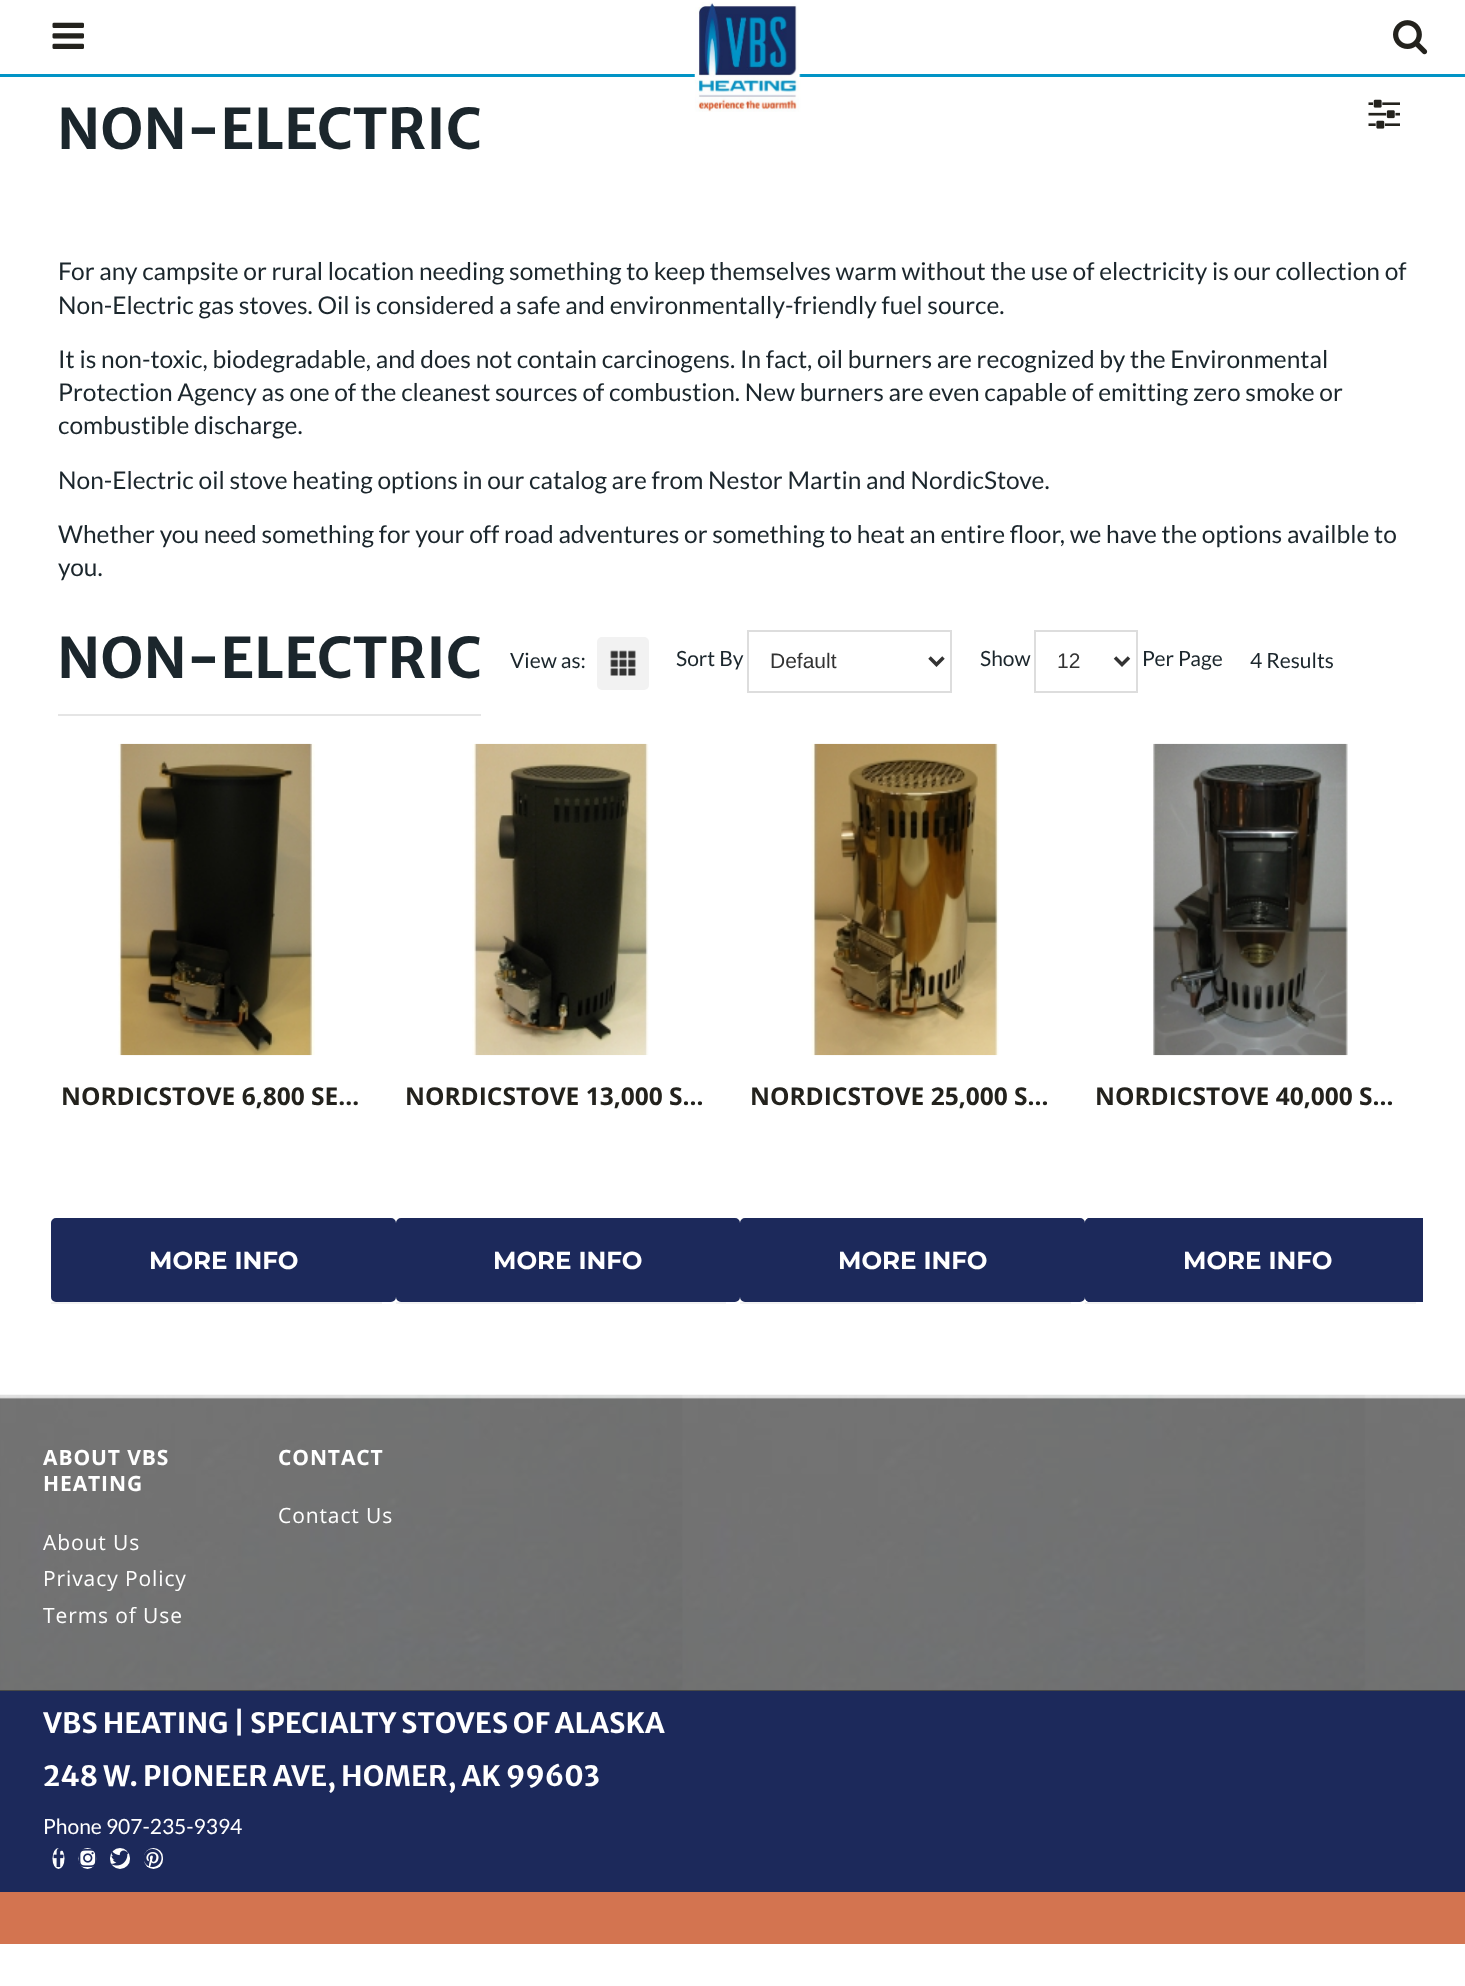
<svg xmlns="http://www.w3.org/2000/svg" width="1465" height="1986">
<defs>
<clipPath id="clip1"><rect x="44" y="716" width="1379" height="623"/></clipPath>
</defs>
<rect width="100%" height="100%" fill="#fff"/>
<rect y="74" width="1465" height="3" fill="#0194c6"/>
<image x="52" y="22" width="32" height="27" href="media/1.png"/>
<image x="694" y="2" width="107" height="110" href="media/2.png"/>
<image x="1393" y="20" width="35" height="35" href="media/3.png"/>
<text x="57" y="149" style="font-family:Merriweather Sans;font-size:56px;font-weight:bold;fill:#1b262c">NON-ELECTRIC</text>
<image x="1368" y="99" width="32" height="30" href="media/4.png"/>
<text x="58" y="280" style="font-family:Lato;font-size:24.5px;fill:#1b262c">For any campsite or rural location needing something to keep themselves warm without the use of electricity is our collection of</text>
<text x="58" y="314" style="font-family:Lato;font-size:24.5px;fill:#1b262c">Non-Electric gas stoves. Oil is considered a safe and environmentally-friendly fuel source.</text>
<text x="58" y="368" style="font-family:Lato;font-size:24.5px;fill:#1b262c">It is non-toxic, biodegradable, and does not contain carcinogens. In fact, oil burners are recognized by the Environmental</text>
<text x="58" y="401" style="font-family:Lato;font-size:24.5px;fill:#1b262c">Protection Agency as one of the cleanest sources of combustion. New burners are even capable of emitting zero smoke or</text>
<text x="58" y="434" style="font-family:Lato;font-size:24.5px;fill:#1b262c">combustible discharge.</text>
<text x="58" y="489" style="font-family:Lato;font-size:24.5px;fill:#1b262c">Non-Electric oil stove heating options in our catalog are from Nestor Martin and NordicStove.</text>
<text x="58" y="543" style="font-family:Lato;font-size:24.5px;fill:#1b262c">Whether you need something for your off road adventures or something to heat an entire floor, we have the options availble to</text>
<text x="58" y="576" style="font-family:Lato;font-size:24.5px;fill:#1b262c">you.</text>
<rect x="58" y="714" width="423" height="2" fill="#e5e5e5"/>
<text x="57" y="678" style="font-family:Merriweather Sans;font-size:56px;font-weight:bold;fill:#1b262c">NON-ELECTRIC</text>
<text x="510" y="668" style="font-family:Lato;font-size:21px;fill:#1b262c">View as:</text>
<rect x="597" y="637" width="52" height="53" rx="5" fill="#f2f2f2"/>
<image x="610" y="650" width="26" height="26" href="media/5.png"/>
<text x="676" y="666" style="font-family:Lato;font-size:21px;fill:#1b262c">Sort By</text>
<rect x="748" y="631" width="203" height="61" fill="none" stroke="#ddd" stroke-width="2"/>
<path d="M929.5 657.5l7 7l7-7" fill="none" stroke="#333" stroke-width="3.5"/>
<text x="770" y="668" style="font-family:Liberation Sans;font-size:21px;fill:#333">Default</text>
<text x="980" y="666" style="font-family:Lato;font-size:21px;fill:#1b262c">Show</text>
<rect x="1035" y="631" width="102" height="61" fill="none" stroke="#ddd" stroke-width="2"/>
<path d="M1115 657.5l7 7l7-7" fill="none" stroke="#333" stroke-width="3.5"/>
<text x="1057" y="668" style="font-family:Liberation Sans;font-size:21px;fill:#333">12</text>
<text x="1142" y="666" style="font-family:Lato;font-size:21px;fill:#1b262c">Per Page</text>
<text x="1250" y="668" style="font-family:Lato;font-size:21px;fill:#1b262c">4 Results</text>
<rect x="51" y="1302" width="331" height="2" fill="#f2f2f2"/>
<image x="118" y="743" width="197" height="313" href="media/6.png"/>
<text x="61" y="1105" style="font-family:Open Sans;font-size:24.5px;font-weight:bold;fill:#23221d">NORDICSTOVE 6,800 SE…</text>
<rect x="53" y="1220" width="341" height="80" rx="3" fill="#1c295b" stroke="#1c295b" stroke-width="4"/>
<text x="149" y="1269" style="font-family:Montserrat;font-size:24.5px;font-weight:bold;fill:#fff">MORE INFO</text>
<rect x="396" y="1302" width="330" height="2" fill="#f2f2f2"/>
<image x="472" y="743" width="177" height="313" href="media/7.png"/>
<text x="405" y="1105" style="font-family:Open Sans;font-size:24.5px;font-weight:bold;fill:#23221d">NORDICSTOVE 13,000 S…</text>
<rect x="398" y="1220" width="340" height="80" rx="3" fill="#1c295b" stroke="#1c295b" stroke-width="4"/>
<text x="493" y="1269" style="font-family:Montserrat;font-size:24.5px;font-weight:bold;fill:#fff">MORE INFO</text>
<rect x="740" y="1302" width="331" height="2" fill="#f2f2f2"/>
<image x="811" y="743" width="188" height="313" href="media/8.png"/>
<text x="750" y="1105" style="font-family:Open Sans;font-size:24.5px;font-weight:bold;fill:#23221d">NORDICSTOVE 25,000 S…</text>
<rect x="742" y="1220" width="341" height="80" rx="3" fill="#1c295b" stroke="#1c295b" stroke-width="4"/>
<text x="838" y="1269" style="font-family:Montserrat;font-size:24.5px;font-weight:bold;fill:#fff">MORE INFO</text>
<rect x="1085" y="1302" width="331" height="2" fill="#f2f2f2"/>
<image x="1153" y="743" width="195" height="313" href="media/9.png"/>
<text x="1095" y="1105" style="font-family:Open Sans;font-size:24.5px;font-weight:bold;fill:#23221d">NORDICSTOVE 40,000 S…</text>
<path d="M1090 1218h333v84h-333c-3 0-5-2-5-5v-74c0-3 2-5 5-5z" fill="#1c295b"/>
<g clip-path="url(#clip1)">
<rect x="1087" y="1220" width="341" height="80" rx="3" fill="none" stroke="#1c295b" stroke-width="4"/>
</g>
<text x="1183" y="1269" style="font-family:Montserrat;font-size:24.5px;font-weight:bold;fill:#fff">MORE INFO</text>
<rect y="1690" width="1465" height="1" fill="#23221d"/>
<image x="0" y="1394" width="1465" height="297" href="media/10.png"/>
<text x="43" y="1465" style="font-family:Open Sans;font-size:21px;font-weight:bold;letter-spacing:0.9px;fill:#fff">ABOUT VBS</text>
<text x="43" y="1491" style="font-family:Open Sans;font-size:21px;font-weight:bold;letter-spacing:0.9px;fill:#fff">HEATING</text>
<text x="43" y="1550" style="font-family:Open Sans;font-size:21px;letter-spacing:0.9px;fill:#fff">About Us</text>
<text x="43" y="1586" style="font-family:Open Sans;font-size:21px;letter-spacing:0.9px;fill:#fff">Privacy Policy</text>
<text x="43" y="1623" style="font-family:Open Sans;font-size:21px;letter-spacing:0.9px;fill:#fff">Terms of Use</text>
<text x="278" y="1465" style="font-family:Open Sans;font-size:21px;font-weight:bold;letter-spacing:0.9px;fill:#fff">CONTACT</text>
<text x="278" y="1523" style="font-family:Open Sans;font-size:21px;letter-spacing:0.9px;fill:#fff">Contact Us</text>
<rect y="1691" width="1465" height="201" fill="#1c295b"/>
<text x="43" y="1733" style="font-family:Merriweather Sans;font-size:28px;font-weight:bold;fill:#fff">VBS HEATING | SPECIALTY STOVES OF ALASKA</text>
<text x="43" y="1786" style="font-family:Merriweather Sans;font-size:28px;font-weight:bold;fill:#fff">248 W. PIONEER AVE, HOMER, AK 99603</text>
<text x="43" y="1834" style="font-family:Lato;font-size:21px;fill:#fff">Phone 907-235-9394</text>
<ellipse cx="58.5" cy="1858.5" rx="6" ry="10.5" fill="#fff"/>
<image x="53" y="1848" width="11" height="19" href="media/11.png"/>
<ellipse cx="87.5" cy="1858.5" rx="9" ry="10.5" fill="#fff"/>
<image x="78" y="1849" width="19" height="18" href="media/12.png"/>
<rect x="110" y="1848" width="20" height="21" rx="10" fill="#fff"/>
<image x="111" y="1850" width="18" height="16" href="media/13.png"/>
<rect x="144" y="1848" width="19" height="21" rx="9.5" fill="#fff"/>
<image x="144" y="1849" width="18" height="18" href="media/14.png"/>
<rect y="1892" width="1465" height="52" fill="#d37450"/>
</svg>
